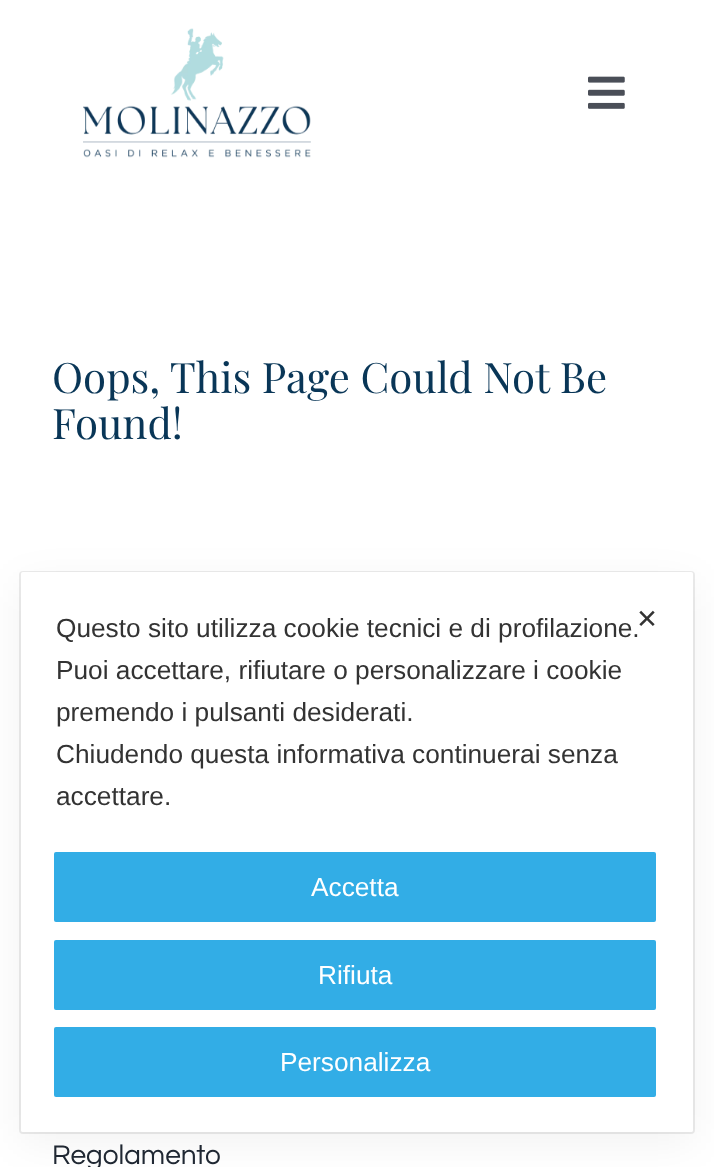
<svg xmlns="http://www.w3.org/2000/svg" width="714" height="1167">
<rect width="100%" height="100%" fill="#fff"/>
<image x="83" y="28" width="228" height="130" href="media/1.png"/>
<image x="588" y="76" width="37" height="33" href="media/2.png"/>
<text x="52" y="393" style="font-family:Playfair Display;font-size:42px;fill:#093657">Oops, This Page Could Not Be</text>
<text x="52" y="439" style="font-family:Playfair Display;font-size:42px;fill:#093657">Found!</text>
<text x="52" y="1164" style="font-family:Questrial;font-size:28px;fill:#212934">Regolamento</text>
<rect x="20" y="572" width="674" height="561" rx="3" fill="none" stroke="#00000014" stroke-width="2"/>
<rect x="21" y="583" width="672" height="560" rx="2" fill="#0000000d" filter="blur(21px)"/>
<rect x="21" y="572" width="672" height="560" rx="2" fill="#fff"/>
<text x="56" y="637" style="font-family:Liberation Sans;font-size:26.25px;fill:#333">Questo sito utilizza cookie tecnici e di profilazione.</text>
<text x="56" y="679" style="font-family:Liberation Sans;font-size:26.25px;fill:#333">Puoi accettare, rifiutare o personalizzare i cookie</text>
<text x="56" y="721" style="font-family:Liberation Sans;font-size:26.25px;fill:#333">premendo i pulsanti desiderati.</text>
<text x="56" y="763" style="font-family:Liberation Sans;font-size:26.25px;fill:#333">Chiudendo questa informativa continuerai senza</text>
<text x="56" y="805" style="font-family:Liberation Sans;font-size:26.25px;fill:#333">accettare.</text>
<rect x="54" y="852" width="602" height="70" rx="2" fill="#32ade6"/>
<text x="311" y="896" style="font-family:Liberation Sans;font-size:26.25px;fill:#fff">Accetta</text>
<rect x="54" y="940" width="602" height="70" rx="2" fill="#32ade6"/>
<text x="318" y="984" style="font-family:Liberation Sans;font-size:26.25px;fill:#fff">Rifiuta</text>
<rect x="54" y="1027" width="602" height="70" rx="2" fill="#32ade6"/>
<text x="280" y="1071" style="font-family:Liberation Sans;font-size:26.25px;fill:#fff">Personalizza</text>
<text x="636" y="628" style="font-family:DejaVu Sans;font-size:26.25px;fill:#333">✕</text>
</svg>
